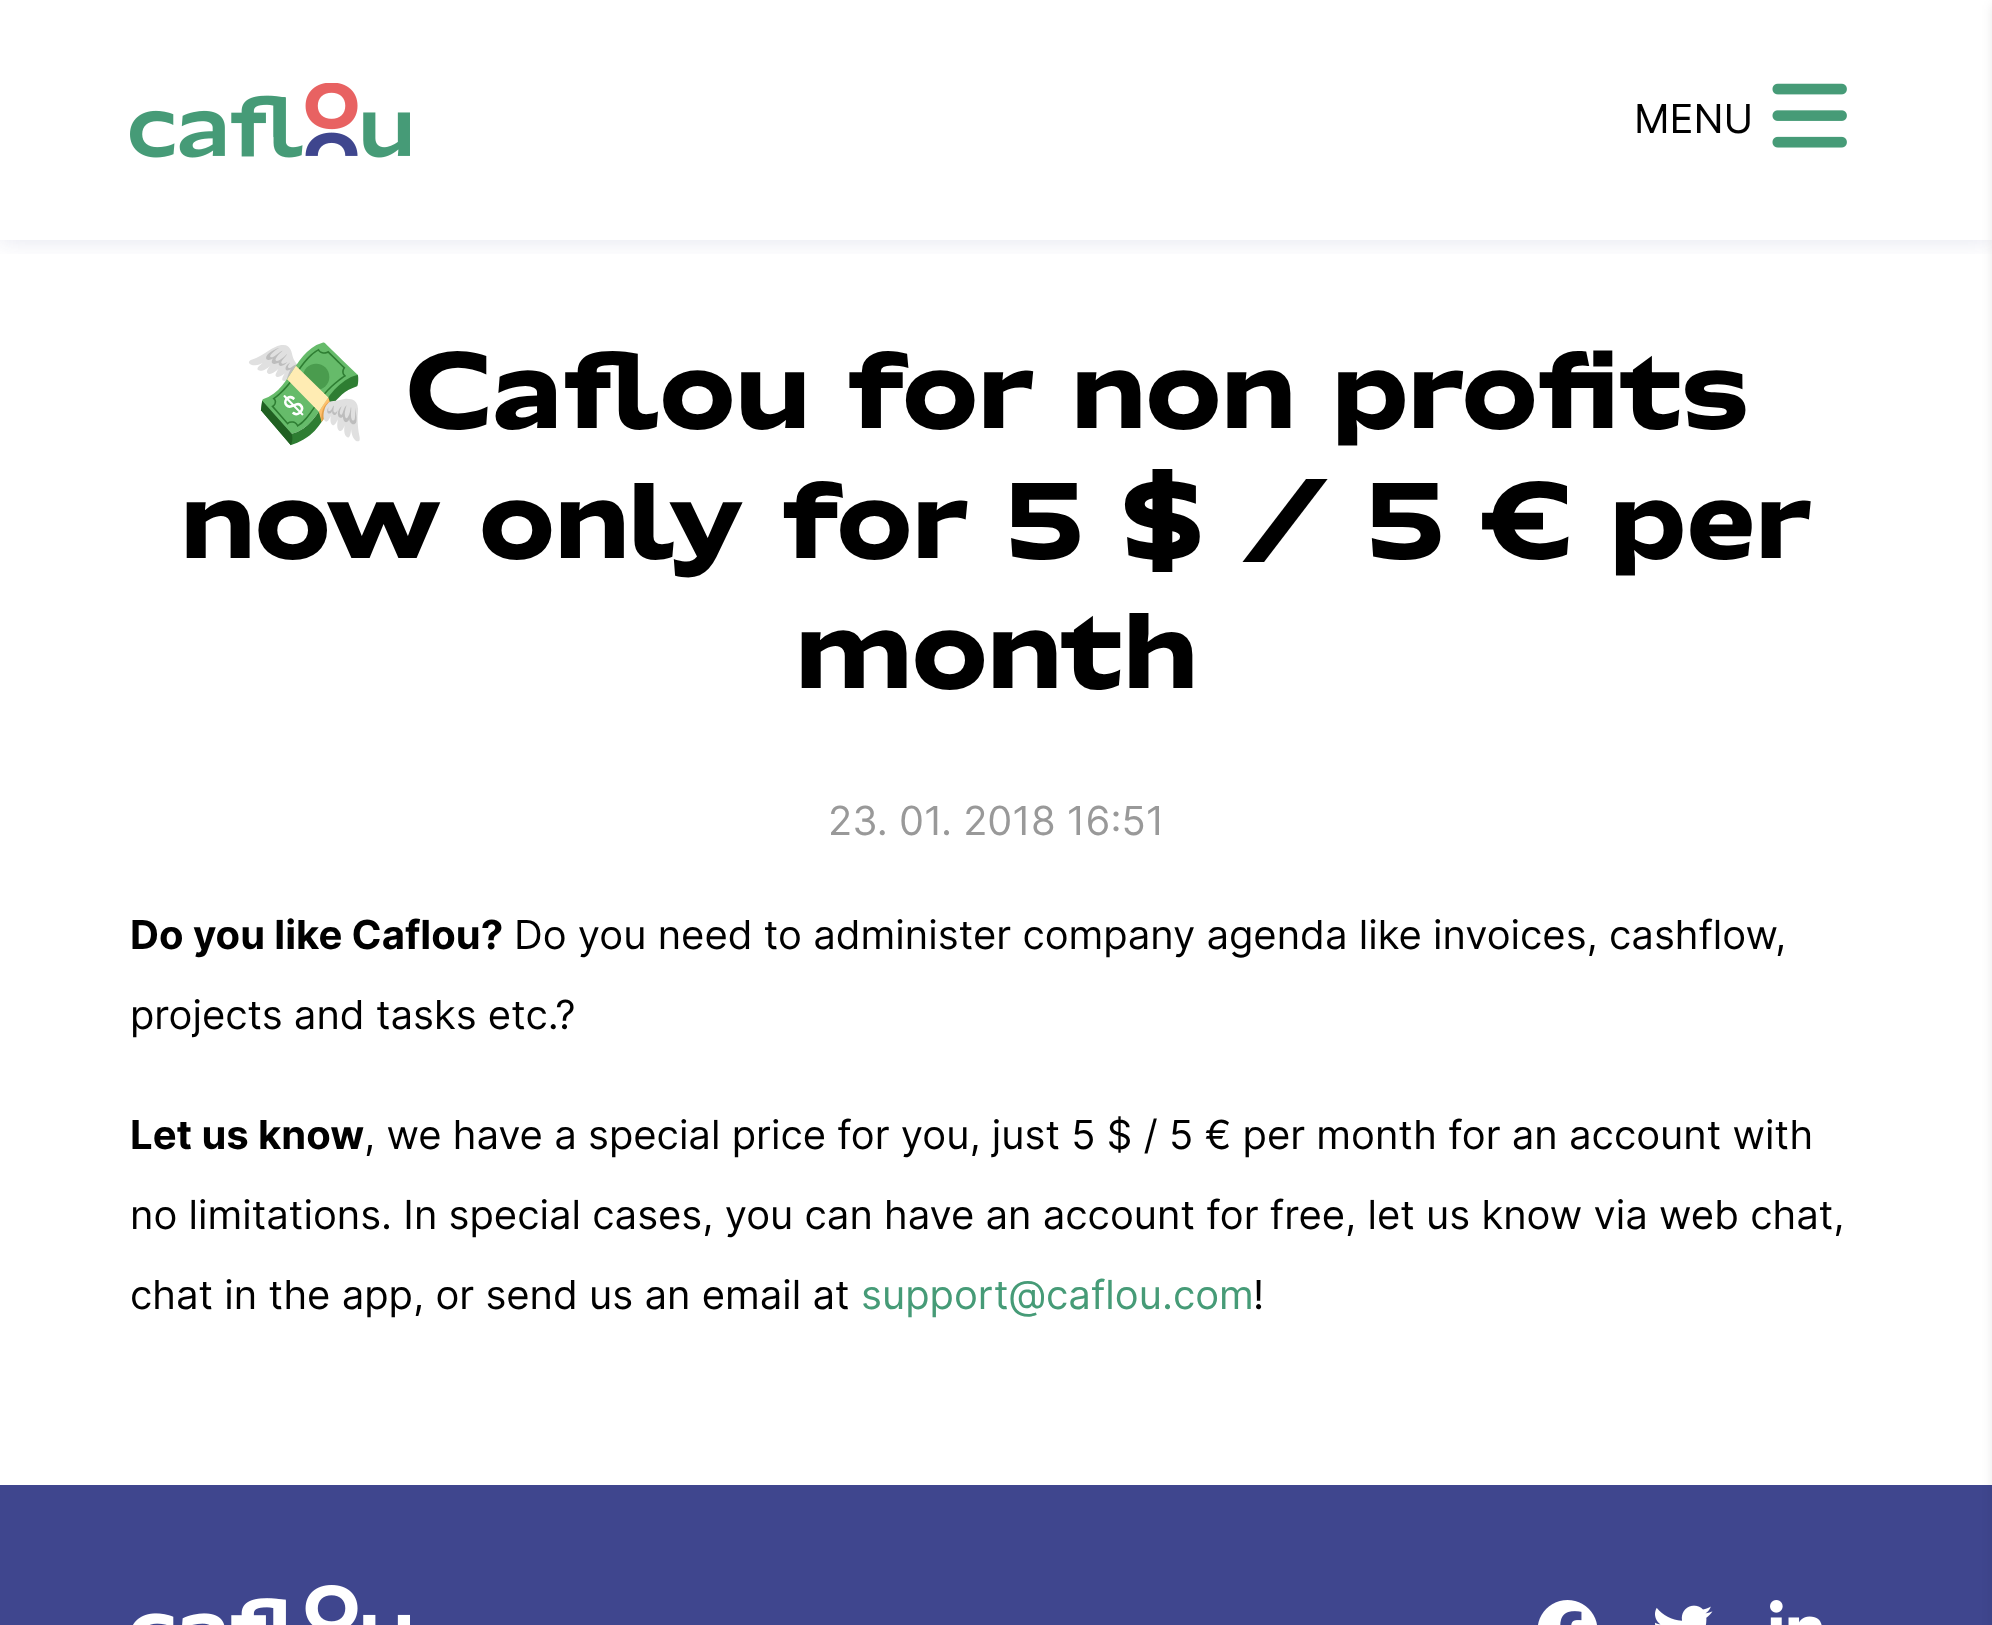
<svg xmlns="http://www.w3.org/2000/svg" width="1992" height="1625">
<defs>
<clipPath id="clip1"><rect x="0" y="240" width="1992" height="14"/></clipPath>
</defs>
<rect width="100%" height="100%" fill="#fff"/>
<g clip-path="url(#clip1)">
<rect width="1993" height="240" fill="#3f468e26" filter="blur(12.5px)"/>
</g>
<image x="130" y="83" width="280" height="75" href="media/1.png"/>
<text x="1634" y="133" style="font-family:Inter;font-size:40px;fill:#000">MENU</text>
<image x="1772" y="83" width="75" height="65" href="media/2.png"/>
<rect y="1485" width="1992" height="140" fill="#3f468e"/>
<rect x="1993" y="5" width="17" height="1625" fill="#0000001a" filter="blur(6px)"/>
<text x="243" y="428" style="font-family:Noto Color Emoji;font-size:100px;font-weight:bold;fill:#000">💸</text>
<text x="405" y="428" style="font-family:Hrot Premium;font-size:100px;font-weight:bold;fill:#000">Caflou for non profits</text>
<text x="181" y="558" style="font-family:Hrot Premium;font-size:100px;font-weight:bold;fill:#000">now only for 5 $ / 5 € per</text>
<text x="796" y="688" style="font-family:Hrot Premium;font-size:100px;font-weight:bold;fill:#000">month</text>
<text x="828" y="835" style="font-family:Inter;font-size:40px;fill:#999">23. 01. 2018 16:51</text>
<text x="130" y="949" style="font-family:Inter;font-size:40px;font-weight:bold;fill:#000">Do you like Caflou?</text>
<text x="514" y="949" style="font-family:Inter;font-size:40px;fill:#000">Do you need to administer company agenda like invoices, cashflow,</text>
<text x="130" y="1029" style="font-family:Inter;font-size:40px;fill:#000">projects and tasks etc.?</text>
<text x="130" y="1149" style="font-family:Inter;font-size:40px;font-weight:bold;fill:#000">Let us know</text>
<text x="364" y="1149" style="font-family:Inter;font-size:40px;fill:#000">, we have a special price for you, just 5 $ / 5 € per month for an account with</text>
<text x="130" y="1229" style="font-family:Inter;font-size:40px;fill:#000">no limitations. In special cases, you can have an account for free, let us know via web chat,</text>
<text x="130" y="1309" style="font-family:Inter;font-size:40px;fill:#000">chat in the app, or send us an email at</text>
<text x="861" y="1309" style="font-family:Inter;font-size:40px;fill:#469b77">support@caflou.com</text>
<text x="1253" y="1309" style="font-family:Inter;font-size:40px;fill:#000">!</text>
<image x="133" y="1585" width="277" height="40" href="media/3.png"/>
<image x="1538" y="1600" width="59" height="25" href="media/4.png"/>
<image x="1655" y="1605" width="58" height="20" href="media/5.png"/>
<image x="1770" y="1600" width="52" height="25" href="media/6.png"/>
</svg>
